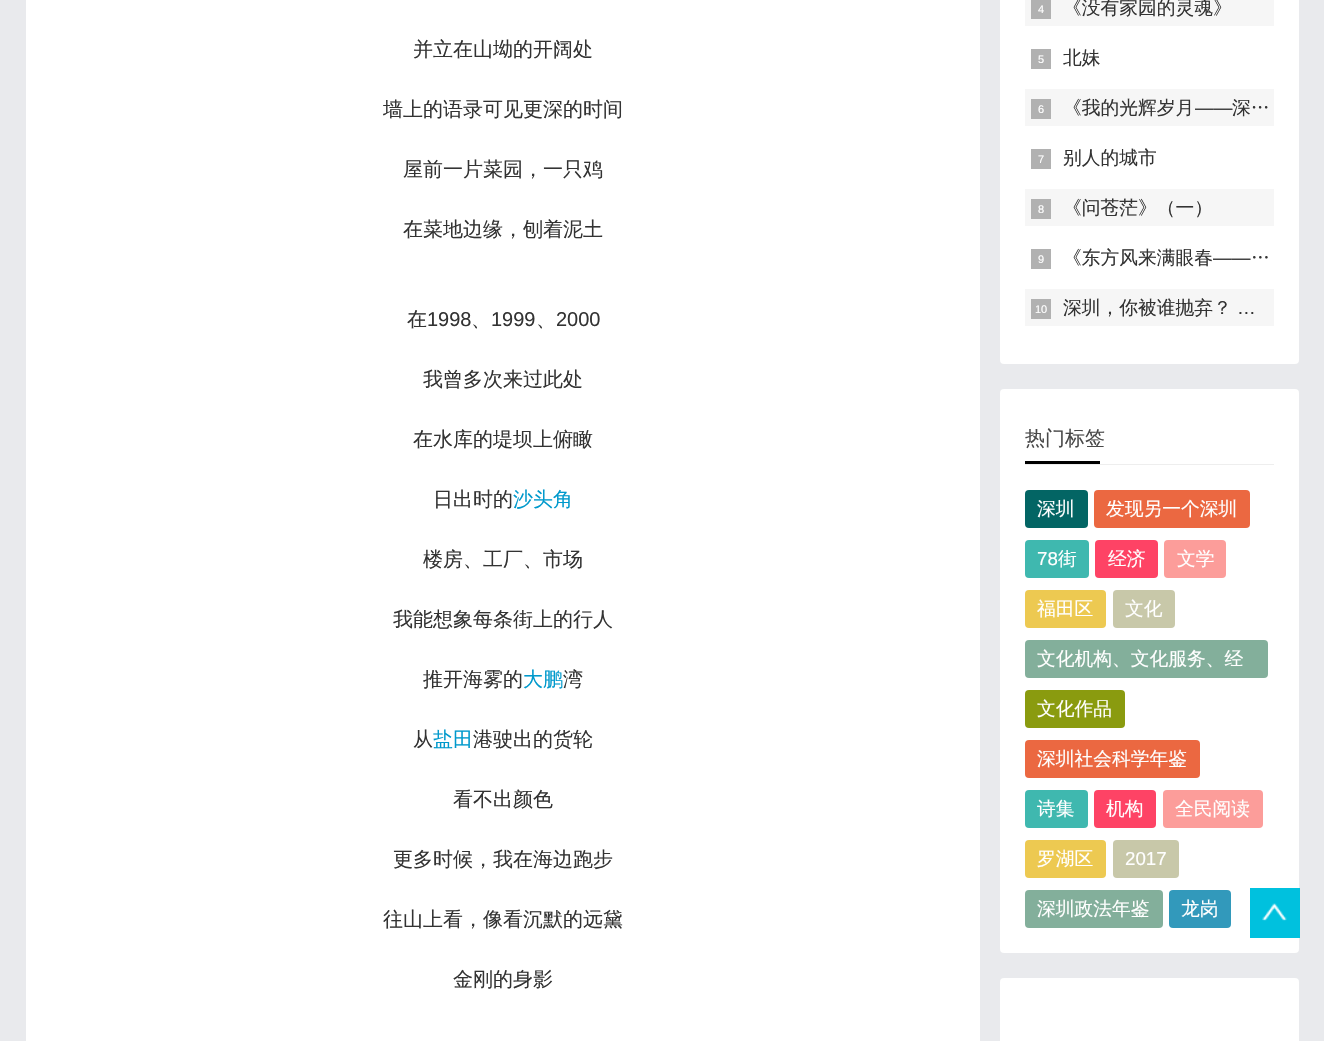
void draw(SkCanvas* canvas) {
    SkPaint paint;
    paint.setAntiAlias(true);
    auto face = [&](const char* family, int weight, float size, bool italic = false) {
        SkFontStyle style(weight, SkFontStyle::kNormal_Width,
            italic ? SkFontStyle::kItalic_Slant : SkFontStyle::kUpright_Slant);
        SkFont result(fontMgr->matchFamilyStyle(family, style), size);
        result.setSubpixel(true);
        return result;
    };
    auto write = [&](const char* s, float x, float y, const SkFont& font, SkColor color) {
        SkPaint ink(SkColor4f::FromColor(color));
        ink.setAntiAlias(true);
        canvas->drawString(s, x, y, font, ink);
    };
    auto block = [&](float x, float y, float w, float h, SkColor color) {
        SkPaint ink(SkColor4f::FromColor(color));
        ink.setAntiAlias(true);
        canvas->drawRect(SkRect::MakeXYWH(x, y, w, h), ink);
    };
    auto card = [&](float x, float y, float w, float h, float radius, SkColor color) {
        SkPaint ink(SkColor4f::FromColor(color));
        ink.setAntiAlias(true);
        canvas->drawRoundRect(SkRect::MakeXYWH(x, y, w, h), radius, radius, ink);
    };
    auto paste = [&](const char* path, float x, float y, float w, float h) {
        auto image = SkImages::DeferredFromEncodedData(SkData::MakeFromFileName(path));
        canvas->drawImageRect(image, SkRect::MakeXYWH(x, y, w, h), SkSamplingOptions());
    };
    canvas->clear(SkColorSetRGB(233, 234, 237));
    block(26, 0, 954, 1041, SK_ColorWHITE);
    auto kFont1 = face("WenQuanYi Zen Hei", 500, 20);
    write("并立在山坳的开阔处", 413, 56, kFont1, SkColorSetRGB(51, 51, 51));
    write("墙上的语录可见更深的时间", 383, 116, kFont1, SkColorSetRGB(51, 51, 51));
    write("屋前一片菜园，一只鸡", 403, 176, kFont1, SkColorSetRGB(51, 51, 51));
    write("在菜地边缘，刨着泥土", 403, 236, kFont1, SkColorSetRGB(51, 51, 51));
    write("在", 407, 326, kFont1, SkColorSetRGB(51, 51, 51));
    auto kFont2 = face("Liberation Sans", 400, 20);
    write("1998", 427, 326, kFont2, SkColorSetRGB(51, 51, 51));
    write("、", 471, 326, kFont1, SkColorSetRGB(51, 51, 51));
    write("1999", 491, 326, kFont2, SkColorSetRGB(51, 51, 51));
    write("、", 536, 326, kFont1, SkColorSetRGB(51, 51, 51));
    write("2000", 556, 326, kFont2, SkColorSetRGB(51, 51, 51));
    write("我曾多次来过此处", 423, 386, kFont1, SkColorSetRGB(51, 51, 51));
    write("在水库的堤坝上俯瞰", 413, 446, kFont1, SkColorSetRGB(51, 51, 51));
    write("日出时的", 433, 506, kFont1, SkColorSetRGB(51, 51, 51));
    write("沙头角", 513, 506, kFont1, SkColorSetRGB(0, 153, 204));
    write("楼房、工厂、市场", 423, 566, kFont1, SkColorSetRGB(51, 51, 51));
    write("我能想象每条街上的行人", 393, 626, kFont1, SkColorSetRGB(51, 51, 51));
    write("推开海雾的", 423, 686, kFont1, SkColorSetRGB(51, 51, 51));
    write("大鹏", 523, 686, kFont1, SkColorSetRGB(0, 153, 204));
    write("湾", 563, 686, kFont1, SkColorSetRGB(51, 51, 51));
    write("从", 413, 746, kFont1, SkColorSetRGB(51, 51, 51));
    write("盐田", 433, 746, kFont1, SkColorSetRGB(0, 153, 204));
    write("港驶出的货轮", 473, 746, kFont1, SkColorSetRGB(51, 51, 51));
    write("看不出颜色", 453, 806, kFont1, SkColorSetRGB(51, 51, 51));
    write("更多时候，我在海边跑步", 393, 866, kFont1, SkColorSetRGB(51, 51, 51));
    write("往山上看，像看沉默的远黛", 383, 926, kFont1, SkColorSetRGB(51, 51, 51));
    write("金刚的身影", 453, 986, kFont1, SkColorSetRGB(51, 51, 51));
    card(1000, -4, 299, 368, 4, SK_ColorWHITE);
    block(1025, 0, 249, 26, SkColorSetRGB(246, 246, 246));
    block(1031, 0, 20, 19, SkColorSetRGB(177, 177, 177));
    auto kFont3 = face("Liberation Sans", 400, 11);
    write("4", 1038, 13, kFont3, SK_ColorWHITE);
    auto kFont4 = face("WenQuanYi Zen Hei", 500, 18.75f);
    write("《没有家园的灵魂》", 1063, 14, kFont4, SkColorSetRGB(51, 51, 51));
    block(1031, 49, 20, 20, SkColorSetRGB(177, 177, 177));
    write("5", 1038, 63, kFont3, SK_ColorWHITE);
    write("北妹", 1063, 64, kFont4, SkColorSetRGB(51, 51, 51));
    block(1025, 89, 249, 37, SkColorSetRGB(246, 246, 246));
    block(1031, 99, 20, 20, SkColorSetRGB(177, 177, 177));
    write("6", 1038, 113, kFont3, SK_ColorWHITE);
    write("《我的光辉岁月", 1063, 114, kFont4, SkColorSetRGB(51, 51, 51));
    auto kFont5 = face("Liberation Sans", 400, 18.75f);
    write("——", 1195, 114, kFont5, SkColorSetRGB(51, 51, 51));
    write("深…", 1232, 114, kFont4, SkColorSetRGB(51, 51, 51));
    block(1031, 149, 20, 20, SkColorSetRGB(177, 177, 177));
    write("7", 1038, 163, kFont3, SK_ColorWHITE);
    write("别人的城市", 1063, 164, kFont4, SkColorSetRGB(51, 51, 51));
    block(1025, 189, 249, 37, SkColorSetRGB(246, 246, 246));
    block(1031, 199, 20, 20, SkColorSetRGB(177, 177, 177));
    write("8", 1038, 213, kFont3, SK_ColorWHITE);
    write("《问苍茫》（一）", 1063, 214, kFont4, SkColorSetRGB(51, 51, 51));
    block(1031, 249, 20, 20, SkColorSetRGB(177, 177, 177));
    write("9", 1038, 263, kFont3, SK_ColorWHITE);
    write("《东方风来满眼春", 1063, 264, kFont4, SkColorSetRGB(51, 51, 51));
    write("——", 1213, 264, kFont5, SkColorSetRGB(51, 51, 51));
    write("…", 1251, 264, kFont4, SkColorSetRGB(51, 51, 51));
    block(1025, 289, 249, 37, SkColorSetRGB(246, 246, 246));
    block(1031, 299, 20, 20, SkColorSetRGB(177, 177, 177));
    write("10", 1035, 313, kFont3, SK_ColorWHITE);
    write("深圳，你被谁抛弃？", 1063, 314, kFont4, SkColorSetRGB(51, 51, 51));
    write("…", 1237, 314, kFont5, SkColorSetRGB(51, 51, 51));
    card(1000, 389, 299, 564, 4, SK_ColorWHITE);
    block(1025, 464, 249, 1, SkColorSetRGB(238, 238, 238));
    write("热门标签", 1025, 445, kFont1, SkColorSetRGB(72, 72, 72));
    block(1025, 461, 75, 3, SK_ColorBLACK);
    card(1025, 490, 63, 38, 4, SkColorSetRGB(3, 101, 100));
    write("深圳", 1037, 515, kFont4, SK_ColorWHITE);
    card(1094, 490, 156, 38, 4, SkColorSetRGB(235, 104, 65));
    write("发现另一个深圳", 1106, 515, kFont4, SK_ColorWHITE);
    card(1025, 540, 64, 38, 4, SkColorSetRGB(63, 184, 175));
    write("78", 1037, 565, kFont5, SK_ColorWHITE);
    write("街", 1058, 565, kFont4, SK_ColorWHITE);
    card(1095, 540, 63, 38, 4, SkColorSetRGB(254, 67, 101));
    write("经济", 1108, 565, kFont4, SK_ColorWHITE);
    card(1164, 540, 62, 38, 4, SkColorSetRGB(252, 157, 154));
    write("文学", 1177, 565, kFont4, SK_ColorWHITE);
    card(1025, 590, 81, 38, 4, SkColorSetRGB(237, 201, 81));
    write("福田区", 1037, 615, kFont4, SK_ColorWHITE);
    card(1113, 590, 62, 38, 4, SkColorSetRGB(200, 200, 169));
    write("文化", 1125, 615, kFont4, SK_ColorWHITE);
    card(1025, 640, 243, 38, 4, SkColorSetRGB(131, 175, 155));
    write("文化机构、文化服务、经", 1037, 665, kFont4, SK_ColorWHITE);
    card(1025, 690, 100, 38, 4, SkColorSetRGB(138, 155, 15));
    write("文化作品", 1037, 715, kFont4, SK_ColorWHITE);
    card(1025, 740, 175, 38, 4, SkColorSetRGB(235, 104, 65));
    write("深圳社会科学年鉴", 1037, 765, kFont4, SK_ColorWHITE);
    card(1025, 790, 63, 38, 4, SkColorSetRGB(63, 184, 175));
    write("诗集", 1037, 815, kFont4, SK_ColorWHITE);
    card(1094, 790, 62, 38, 4, SkColorSetRGB(254, 67, 101));
    write("机构", 1106, 815, kFont4, SK_ColorWHITE);
    card(1163, 790, 100, 38, 4, SkColorSetRGB(252, 157, 154));
    write("全民阅读", 1175, 815, kFont4, SK_ColorWHITE);
    card(1025, 840, 81, 38, 4, SkColorSetRGB(237, 201, 81));
    write("罗湖区", 1037, 865, kFont4, SK_ColorWHITE);
    card(1113, 840, 66, 38, 4, SkColorSetRGB(200, 200, 169));
    write("2017", 1125, 865, kFont5, SK_ColorWHITE);
    card(1025, 890, 138, 38, 4, SkColorSetRGB(131, 175, 155));
    write("深圳政法年鉴", 1037, 915, kFont4, SK_ColorWHITE);
    card(1169, 890, 62, 38, 4, SkColorSetRGB(50, 153, 187));
    write("龙岗", 1181, 915, kFont4, SK_ColorWHITE);
    card(1000, 978, 299, 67, 4, SK_ColorWHITE);
    block(1250, 888, 50, 50, SkColorSetRGB(0, 193, 222));
    paste("pic1.png", 1262, 903, 25, 18);
}
